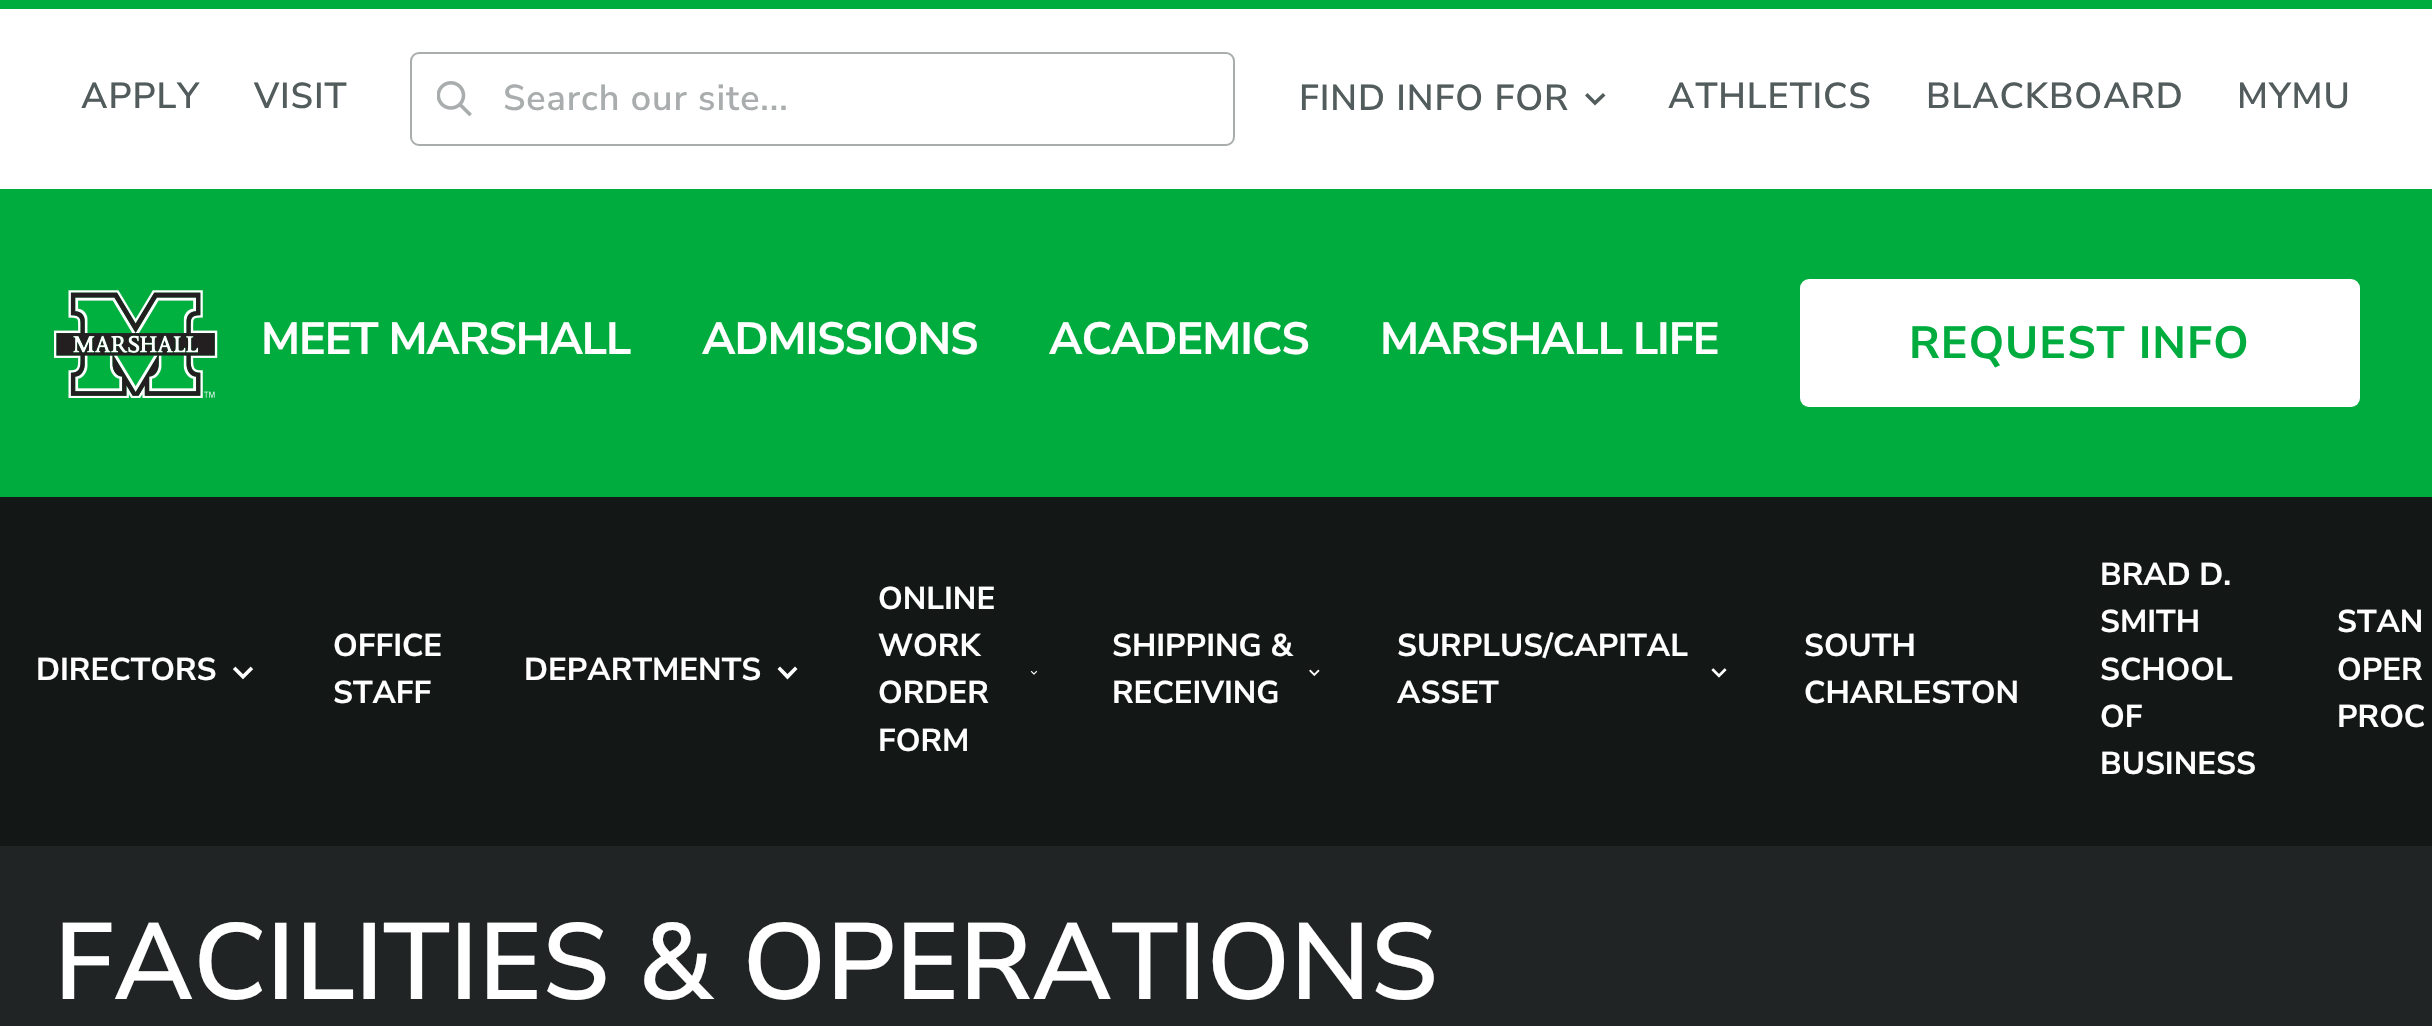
void draw(SkCanvas* canvas) {
    SkPaint paint;
    paint.setAntiAlias(true);
    auto face = [&](const char* family, int weight, float size, bool italic = false) {
        SkFontStyle style(weight, SkFontStyle::kNormal_Width,
            italic ? SkFontStyle::kItalic_Slant : SkFontStyle::kUpright_Slant);
        SkFont result(fontMgr->matchFamilyStyle(family, style), size);
        result.setSubpixel(true);
        return result;
    };
    auto write = [&](const char* s, float x, float y, const SkFont& font, SkColor color) {
        SkPaint ink(SkColor4f::FromColor(color));
        ink.setAntiAlias(true);
        canvas->drawString(s, x, y, font, ink);
    };
    auto writeSpaced = [&](const char* s, float x, float y, const SkFont& font, const SkPaint& ink, float letter, float word) {
        std::vector<SkGlyphID> glyphs(font.countText(s, strlen(s), SkTextEncoding::kUTF8));
        std::vector<float> xs(glyphs.size());
        font.textToGlyphs(s, strlen(s), SkTextEncoding::kUTF8, glyphs);
        font.getXPos(glyphs, xs, x);
        float extra = 0;
        for (size_t i = 0; i < glyphs.size(); i++) {
            xs[i] += extra;
            extra += letter + word * (glyphs[i] == font.unicharToGlyph(' '));
        }
        canvas->drawTextBlob(SkTextBlob::MakeFromPosHGlyphs(glyphs, xs, y, font), 0, 0, ink);
    };
    auto block = [&](float x, float y, float w, float h, SkColor color) {
        SkPaint ink(SkColor4f::FromColor(color));
        ink.setAntiAlias(true);
        canvas->drawRect(SkRect::MakeXYWH(x, y, w, h), ink);
    };
    auto card = [&](float x, float y, float w, float h, float radius, SkColor color) {
        SkPaint ink(SkColor4f::FromColor(color));
        ink.setAntiAlias(true);
        canvas->drawRoundRect(SkRect::MakeXYWH(x, y, w, h), radius, radius, ink);
    };
    auto paste = [&](const char* path, float x, float y, float w, float h) {
        auto image = SkImages::DeferredFromEncodedData(SkData::MakeFromFileName(path));
        canvas->drawImageRect(image, SkRect::MakeXYWH(x, y, w, h), SkSamplingOptions());
    };
    canvas->clear(SK_ColorWHITE);
    block(0, 0, 2432, 9, SkColorSetRGB(0, 172, 62));
    auto kFont1 = face("Nunito Sans", 600, 36);
    paint.setColor(SkColorSetRGB(83, 92, 92));
    writeSpaced("APPLY", 81, 108, kFont1, paint, 0.9f, 0);
    writeSpaced("VISIT", 254, 108, kFont1, paint, 0.9f, 0);
    paint.setStyle(SkPaint::kStroke_Style);
    paint.setStrokeWidth(2);
    paint.setColor(SkColorSetRGB(169, 173, 173));
    canvas->drawRoundRect(SkRect::MakeXYWH(411, 53, 823, 92), 8, 8, paint);
    paste("pic1.png", 437, 81, 35, 36);
    paint.setStyle(SkPaint::kFill_Style);
    writeSpaced("Search our site...", 503, 110, kFont1, paint, 0.9f, 0);
    paint.setColor(SkColorSetRGB(83, 92, 92));
    writeSpaced("FIND INFO FOR", 1299, 110, kFont1, paint, 0.9f, 0);
    canvas->drawPath(SkPathBuilder().moveTo(1594, 104.5f).lineTo(1595, 105.5f).lineTo(1605.5f, 95.5f).lineTo(1603, 93).lineTo(1595, 100.5f).lineTo(1587.5f, 93).lineTo(1585, 95.5f).close().detach(), paint);
    writeSpaced("ATHLETICS", 1668, 108, kFont1, paint, 0.9f, 0);
    writeSpaced("BLACKBOARD", 1926, 108, kFont1, paint, 0.9f, 0);
    writeSpaced("MYMU", 2237, 108, kFont1, paint, 0.9f, 0);
    block(0, 189, 2432, 308, SkColorSetRGB(0, 172, 62));
    paste("pic2.png", 54, 290, 164, 108);
    auto kFont2 = face("Nunito Sans", 700, 45);
    paint.setColor(SK_ColorWHITE);
    writeSpaced("MEET MARSHALL", 261, 354, kFont2, paint, -1.1f, 0);
    writeSpaced("ADMISSIONS", 702, 354, kFont2, paint, -1.1f, 0);
    writeSpaced("ACADEMICS", 1049, 354, kFont2, paint, -1.1f, 0);
    writeSpaced("MARSHALL LIFE", 1380, 354, kFont2, paint, -1.1f, 0);
    card(1800, 279, 560, 128, 9, SK_ColorWHITE);
    paint.setColor(SkColorSetRGB(0, 172, 62));
    writeSpaced("REQUEST INFO", 1909, 358, kFont2, paint, 1, 0);
    block(0, 497, 2432, 349, SkColorSetRGB(19, 23, 22));
    auto kFont3 = face("Nunito Sans", 700, 31.5f);
    write("DIRECTORS", 36, 680, kFont3, SK_ColorWHITE);
    paste("pic3.png", 232, 666, 22, 14);
    write("OFFICE", 333, 656, kFont3, SK_ColorWHITE);
    write("STAFF", 333, 703, kFont3, SK_ColorWHITE);
    write("DEPARTMENTS", 524, 680, kFont3, SK_ColorWHITE);
    paint.setColor(SK_ColorWHITE);
    canvas->drawPath(SkPathBuilder().moveTo(786, 678).lineTo(787.5f, 679.5f).lineTo(797.5f, 669).lineTo(795, 666.5f).lineTo(787.5f, 674).lineTo(780, 666.5f).lineTo(777.5f, 669).close().detach(), paint);
    write("ONLINE", 878, 609, kFont3, SK_ColorWHITE);
    write("WORK", 878, 656, kFont3, SK_ColorWHITE);
    write("ORDER", 878, 703, kFont3, SK_ColorWHITE);
    write("FORM", 878, 751, kFont3, SK_ColorWHITE);
    paste("pic4.png", 1030, 670, 8, 5);
    write("SHIPPING &", 1112, 656, kFont3, SK_ColorWHITE);
    write("RECEIVING", 1112, 703, kFont3, SK_ColorWHITE);
    paste("pic5.png", 1309, 669, 11, 8);
    write("SURPLUS/CAPITAL", 1397, 656, kFont3, SK_ColorWHITE);
    write("ASSET", 1397, 703, kFont3, SK_ColorWHITE);
    paste("pic6.png", 1711, 668, 16, 10);
    write("SOUTH", 1804, 656, kFont3, SK_ColorWHITE);
    write("CHARLESTON", 1804, 703, kFont3, SK_ColorWHITE);
    write("BRAD D.", 2100, 585, kFont3, SK_ColorWHITE);
    write("SMITH", 2100, 632, kFont3, SK_ColorWHITE);
    write("SCHOOL", 2100, 680, kFont3, SK_ColorWHITE);
    write("OF", 2100, 727, kFont3, SK_ColorWHITE);
    write("BUSINESS", 2100, 774, kFont3, SK_ColorWHITE);
    write("STAN", 2337, 632, kFont3, SK_ColorWHITE);
    write("OPER", 2337, 680, kFont3, SK_ColorWHITE);
    write("PROC", 2337, 727, kFont3, SK_ColorWHITE);
    block(0, 846, 2432, 180, SkColorSetRGB(33, 36, 36));
    auto kFont4 = face("Nunito Sans", 600, 108);
    write("FACILITIES & OPERATIONS", 54, 999, kFont4, SK_ColorWHITE);
}
